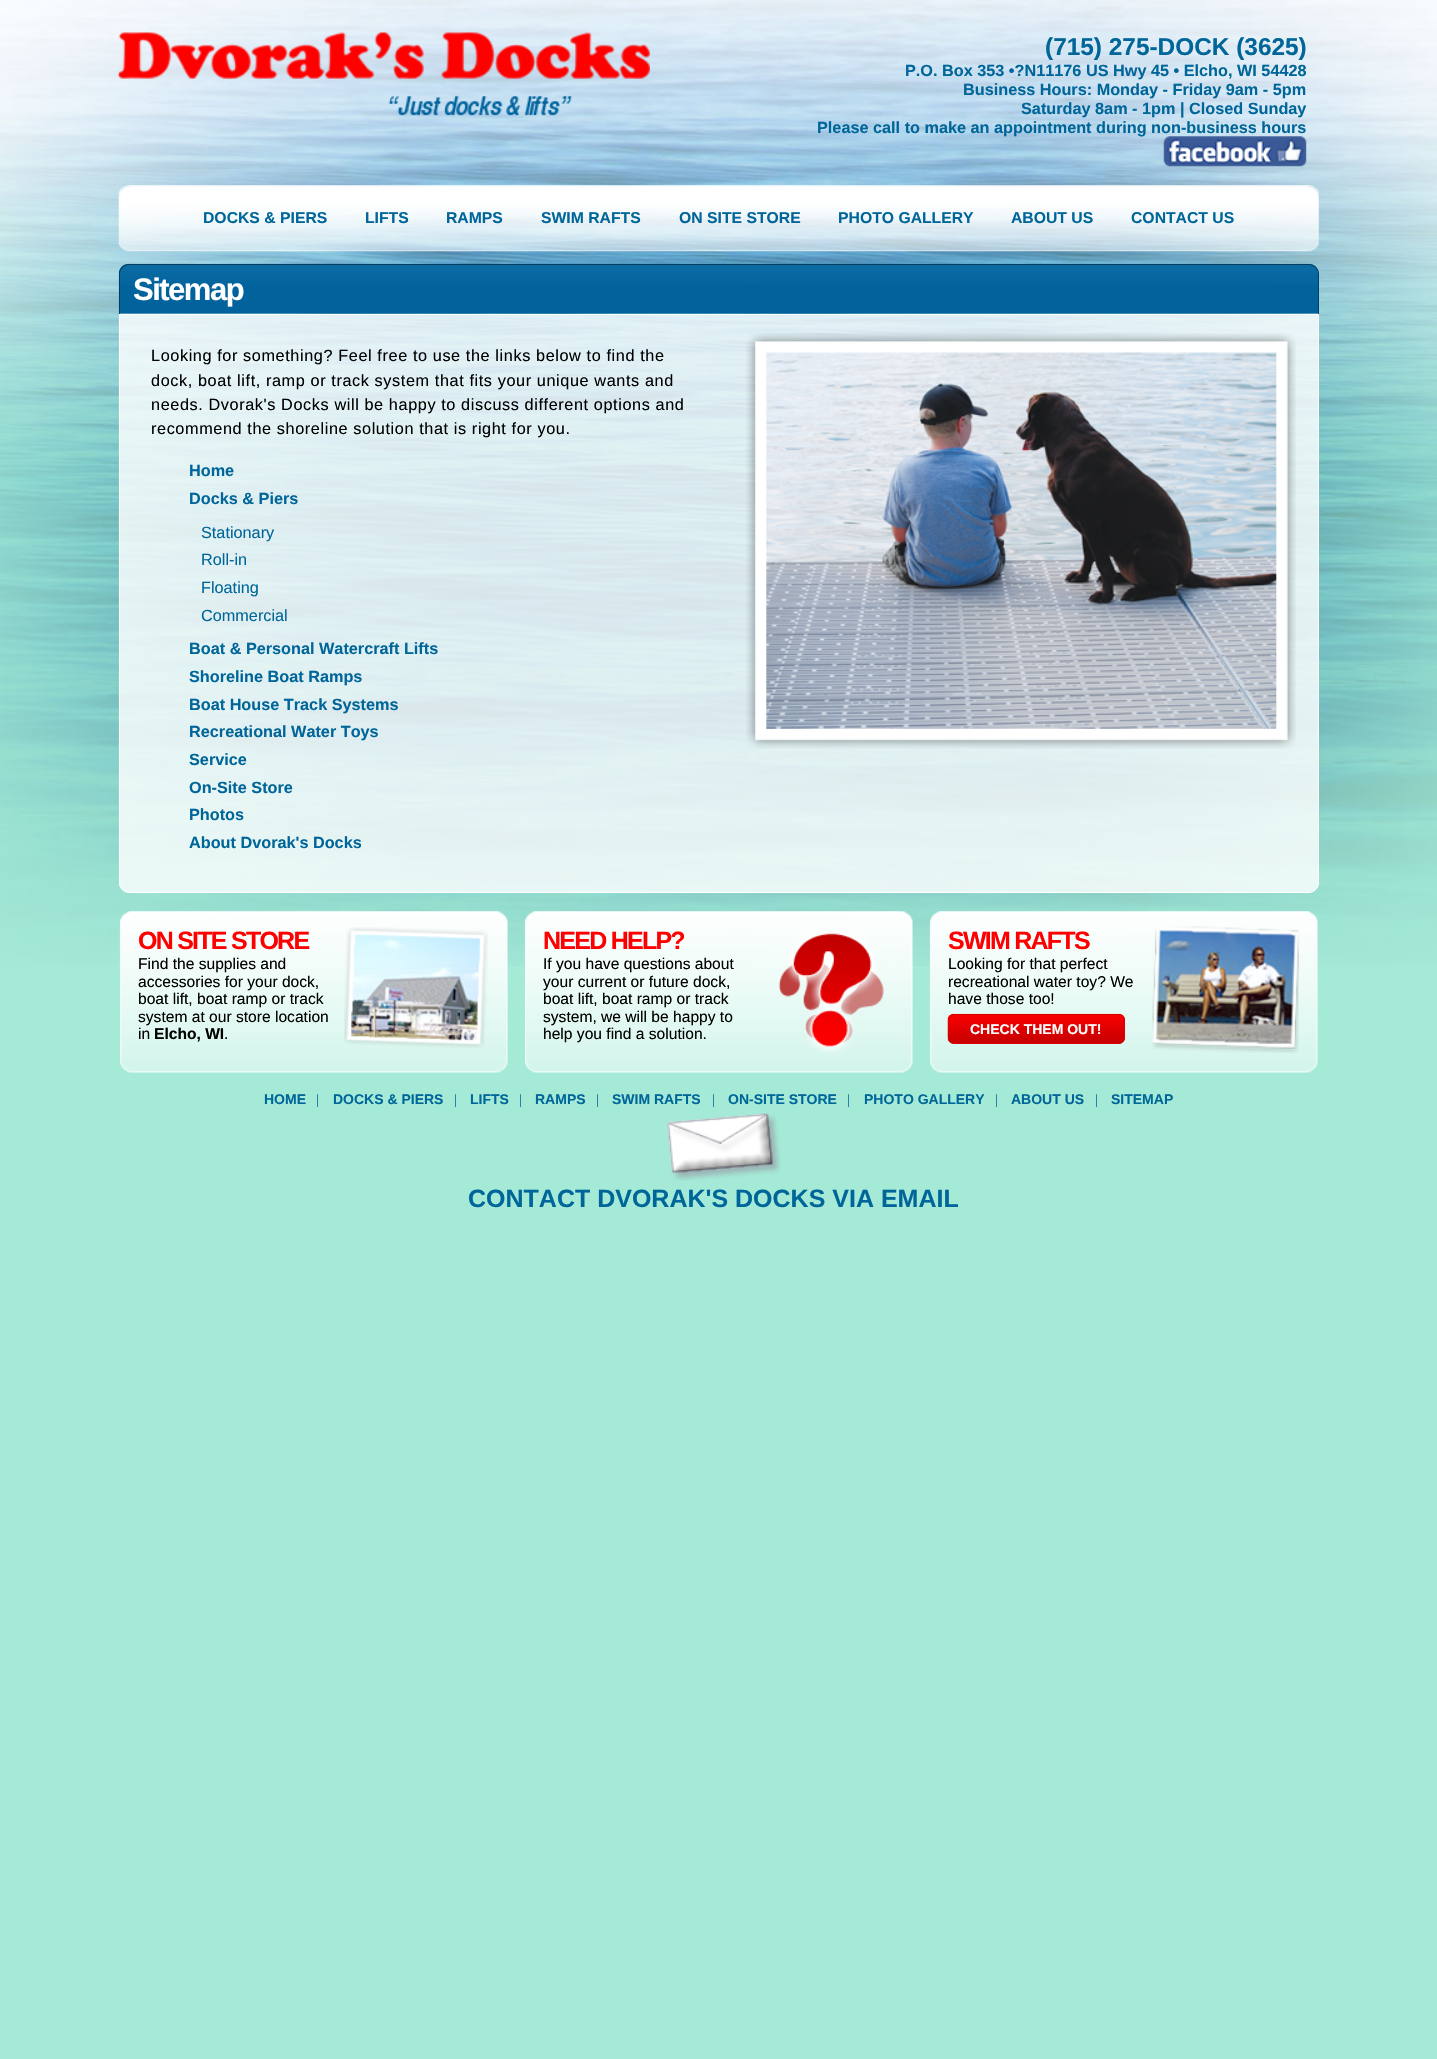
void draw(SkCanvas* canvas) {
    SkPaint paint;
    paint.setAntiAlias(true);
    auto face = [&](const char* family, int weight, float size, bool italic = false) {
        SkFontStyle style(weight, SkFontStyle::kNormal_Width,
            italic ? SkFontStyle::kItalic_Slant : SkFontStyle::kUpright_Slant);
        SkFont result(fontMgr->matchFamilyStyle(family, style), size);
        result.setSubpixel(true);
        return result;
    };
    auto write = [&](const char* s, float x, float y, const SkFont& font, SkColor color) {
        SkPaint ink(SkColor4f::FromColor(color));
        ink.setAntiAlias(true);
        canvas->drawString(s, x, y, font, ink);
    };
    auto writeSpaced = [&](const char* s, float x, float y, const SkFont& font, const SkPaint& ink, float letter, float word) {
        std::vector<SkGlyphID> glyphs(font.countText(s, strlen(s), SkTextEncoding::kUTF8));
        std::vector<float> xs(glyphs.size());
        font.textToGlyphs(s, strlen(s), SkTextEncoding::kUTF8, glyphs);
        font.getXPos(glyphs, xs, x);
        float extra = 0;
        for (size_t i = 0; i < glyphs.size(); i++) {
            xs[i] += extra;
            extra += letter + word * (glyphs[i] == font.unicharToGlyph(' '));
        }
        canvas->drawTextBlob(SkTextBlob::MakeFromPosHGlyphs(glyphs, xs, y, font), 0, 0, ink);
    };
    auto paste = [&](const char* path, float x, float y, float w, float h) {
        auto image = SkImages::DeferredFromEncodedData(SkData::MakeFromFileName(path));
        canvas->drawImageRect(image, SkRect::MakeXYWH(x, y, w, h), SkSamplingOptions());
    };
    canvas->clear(SkColorSetRGB(164, 234, 214));
    paste("pic1.png", 0, 0, 1437, 966);
    paste("pic2.png", 118, 32, 532, 84);
    auto kFont1 = face("Liberation Sans", 700, 24.4f);
    write("(715) 275-DOCK (3625)", 1045, 55, kFont1, SkColorSetRGB(0, 102, 153));
    auto kFont2 = face("Liberation Sans", 700, 16.25f);
    write("P.O. Box 353 •?N11176 US Hwy 45 • Elcho, WI 54428", 905, 76, kFont2, SkColorSetRGB(0, 102, 153));
    write("Business Hours: Monday - Friday 9am - 5pm", 963, 95, kFont2, SkColorSetRGB(0, 102, 153));
    write("Saturday 8am - 1pm | Closed Sunday", 1021, 114, kFont2, SkColorSetRGB(0, 102, 153));
    write("Please call to make an appointment during non-business hours", 817, 133, kFont2, SkColorSetRGB(0, 102, 153));
    paste("pic3.png", 1163, 136, 144, 31);
    paste("pic4.png", 118, 185, 1201, 67);
    auto kFont3 = face("Liberation Sans", 700, 15.75f);
    write("DOCKS & PIERS", 203, 223, kFont3, SkColorSetRGB(0, 102, 153));
    write("LIFTS", 365, 223, kFont3, SkColorSetRGB(0, 102, 153));
    write("RAMPS", 446, 223, kFont3, SkColorSetRGB(0, 102, 153));
    write("SWIM RAFTS", 541, 223, kFont3, SkColorSetRGB(0, 102, 153));
    write("ON SITE STORE", 679, 223, kFont3, SkColorSetRGB(0, 102, 153));
    write("PHOTO GALLERY", 838, 223, kFont3, SkColorSetRGB(0, 102, 153));
    write("ABOUT US", 1011, 223, kFont3, SkColorSetRGB(0, 102, 153));
    write("CONTACT US", 1131, 223, kFont3, SkColorSetRGB(0, 102, 153));
    paste("pic5.png", 118, 263, 1201, 51);
    paint.setColor(SkColorSetRGB(0, 61, 97));
    canvas->drawPath(SkPathBuilder(SkPathFillType::kEvenOdd).moveTo(129, 264).lineTo(1309, 264).cubicTo(1314, 264, 1319, 268, 1319, 274).lineTo(1319, 314).lineTo(119, 314).lineTo(119, 274).cubicTo(119, 268, 123, 264, 129, 264).close().moveTo(129, 265).lineTo(1309, 265).cubicTo(1314, 265, 1318, 269, 1318, 274).lineTo(1318, 314).lineTo(120, 314).lineTo(120, 274).cubicTo(120, 269, 124, 265, 129, 265).close().detach(), paint);
    auto kFont4 = face("Liberation Sans", 700, 31);
    paint.setColor(SK_ColorWHITE);
    writeSpaced("Sitemap", 133, 300, kFont4, paint, -1.5f, 0);
    paste("pic6.png", 118, 313, 1201, 580);
    paint.setStyle(SkPaint::kStroke_Style);
    paint.setStrokeWidth(1);
    canvas->drawPath(SkPathBuilder().moveTo(119.5f, 314.5f).lineTo(1318.5f, 314.5f).lineTo(1318.5f, 883).cubicTo(1318.5f, 888, 1314, 892.5f, 1309, 892.5f).lineTo(129, 892.5f).cubicTo(124, 892.5f, 119.5f, 888, 119.5f, 883).close().detach(), paint);
    auto kFont5 = face("Liberation Sans", 400, 16.25f);
    paint.setStyle(SkPaint::kFill_Style);
    paint.setColor(SK_ColorBLACK);
    writeSpaced("Looking for something? Feel free to use the links below to find the", 151, 361, kFont5, paint, 0.6f, 0);
    writeSpaced("dock, boat lift, ramp or track system that fits your unique wants and", 151, 386, kFont5, paint, 0.6f, 0);
    writeSpaced("needs. Dvorak's Docks will be happy to discuss different options and", 151, 410, kFont5, paint, 0.6f, 0);
    writeSpaced("recommend the shoreline solution that is right for you.", 151, 434, kFont5, paint, 0.6f, 0);
    write("Home", 189, 476, kFont2, SkColorSetRGB(0, 102, 153));
    write("Docks & Piers", 189, 504, kFont2, SkColorSetRGB(0, 102, 153));
    write("Stationary", 201, 538, kFont5, SkColorSetRGB(0, 102, 153));
    write("Roll-in", 201, 565, kFont5, SkColorSetRGB(0, 102, 153));
    write("Floating", 201, 593, kFont5, SkColorSetRGB(0, 102, 153));
    write("Commercial", 201, 621, kFont5, SkColorSetRGB(0, 102, 153));
    write("Boat & Personal Watercraft Lifts", 189, 654, kFont2, SkColorSetRGB(0, 102, 153));
    write("Shoreline Boat Ramps", 189, 682, kFont2, SkColorSetRGB(0, 102, 153));
    write("Boat House Track Systems", 189, 710, kFont2, SkColorSetRGB(0, 102, 153));
    write("Recreational Water Toys", 189, 737, kFont2, SkColorSetRGB(0, 102, 153));
    write("Service", 189, 765, kFont2, SkColorSetRGB(0, 102, 153));
    write("On-Site Store", 189, 793, kFont2, SkColorSetRGB(0, 102, 153));
    write("Photos", 189, 820, kFont2, SkColorSetRGB(0, 102, 153));
    write("About Dvorak's Docks", 189, 848, kFont2, SkColorSetRGB(0, 102, 153));
    paste("pic7.png", 746, 333, 550, 416);
    paste("pic8.png", 119, 911, 389, 162);
    auto kFont6 = face("Liberation Sans", 700, 25);
    paint.setColor(SkColorSetRGB(255, 0, 0));
    writeSpaced("ON SITE STORE", 138, 949, kFont6, paint, -1.75f, 0);
    paste("pic9.png", 344, 927, 144, 121);
    auto kFont7 = face("Liberation Sans", 400, 15.6f);
    write("Find the supplies and", 138, 969, kFont7, SK_ColorBLACK);
    write("accessories for your dock,", 138, 987, kFont7, SK_ColorBLACK);
    write("boat lift, boat ramp or track", 138, 1004, kFont7, SK_ColorBLACK);
    write("system at our store location", 138, 1022, kFont7, SK_ColorBLACK);
    write("in", 138, 1039, kFont7, SK_ColorBLACK);
    auto kFont8 = face("Liberation Sans", 700, 15.6f);
    write("Elcho, WI", 154, 1039, kFont8, SK_ColorBLACK);
    write(".", 224, 1039, kFont7, SK_ColorBLACK);
    paste("pic10.png", 524, 911, 389, 162);
    writeSpaced("NEED HELP?", 543, 949, kFont6, paint, -1.75f, 0);
    paste("pic11.png", 778, 932, 106, 122);
    write("If you have questions about", 543, 969, kFont7, SK_ColorBLACK);
    write("your current or future dock,", 543, 987, kFont7, SK_ColorBLACK);
    write("boat lift, boat ramp or track", 543, 1004, kFont7, SK_ColorBLACK);
    write("system, we will be happy to", 543, 1022, kFont7, SK_ColorBLACK);
    write("help you find a solution.", 543, 1039, kFont7, SK_ColorBLACK);
    paste("pic12.png", 929, 911, 389, 162);
    writeSpaced("SWIM RAFTS", 948, 949, kFont6, paint, -1.75f, 0);
    paste("pic13.png", 1152, 926, 147, 127);
    write("Looking for that perfect", 948, 969, kFont7, SK_ColorBLACK);
    write("recreational water toy? We", 948, 987, kFont7, SK_ColorBLACK);
    write("have those too!", 948, 1004, kFont7, SK_ColorBLACK);
    paste("pic14.png", 947, 1013, 178, 31);
    paint.setStyle(SkPaint::kStroke_Style);
    paint.setColor(SkColorSetRGB(216, 0, 0));
    canvas->drawRoundRect(SkRect::MakeXYWH(948.5f, 1014.5f, 176, 29), 5.5f, 5.5f, paint);
    auto kFont9 = face("Liberation Sans", 700, 14);
    write("CHECK THEM OUT!", 970, 1034, kFont9, SK_ColorWHITE);
    write("HOME", 264, 1104, kFont9, SkColorSetRGB(0, 102, 153));
    auto kFont10 = face("Liberation Serif", 400, 14);
    write("|", 316, 1104, kFont10, SkColorSetRGB(0, 102, 153));
    write("DOCKS & PIERS", 333, 1104, kFont9, SkColorSetRGB(0, 102, 153));
    write("|", 454, 1104, kFont10, SkColorSetRGB(0, 102, 153));
    write("LIFTS", 470, 1104, kFont9, SkColorSetRGB(0, 102, 153));
    write("|", 519, 1104, kFont10, SkColorSetRGB(0, 102, 153));
    write("RAMPS", 535, 1104, kFont9, SkColorSetRGB(0, 102, 153));
    write("|", 596, 1104, kFont10, SkColorSetRGB(0, 102, 153));
    write("SWIM RAFTS", 612, 1104, kFont9, SkColorSetRGB(0, 102, 153));
    write("|", 712, 1104, kFont10, SkColorSetRGB(0, 102, 153));
    write("ON-SITE STORE", 728, 1104, kFont9, SkColorSetRGB(0, 102, 153));
    write("|", 847, 1104, kFont10, SkColorSetRGB(0, 102, 153));
    write("PHOTO GALLERY", 864, 1104, kFont9, SkColorSetRGB(0, 102, 153));
    write("|", 995, 1104, kFont10, SkColorSetRGB(0, 102, 153));
    write("ABOUT US", 1011, 1104, kFont9, SkColorSetRGB(0, 102, 153));
    write("|", 1095, 1104, kFont10, SkColorSetRGB(0, 102, 153));
    write("SITEMAP", 1111, 1104, kFont9, SkColorSetRGB(0, 102, 153));
    paste("pic15.png", 667, 1113, 114, 68);
    write("CONTACT DVORAK'S DOCKS VIA EMAIL", 468, 1207, kFont6, SkColorSetRGB(0, 102, 153));
}
